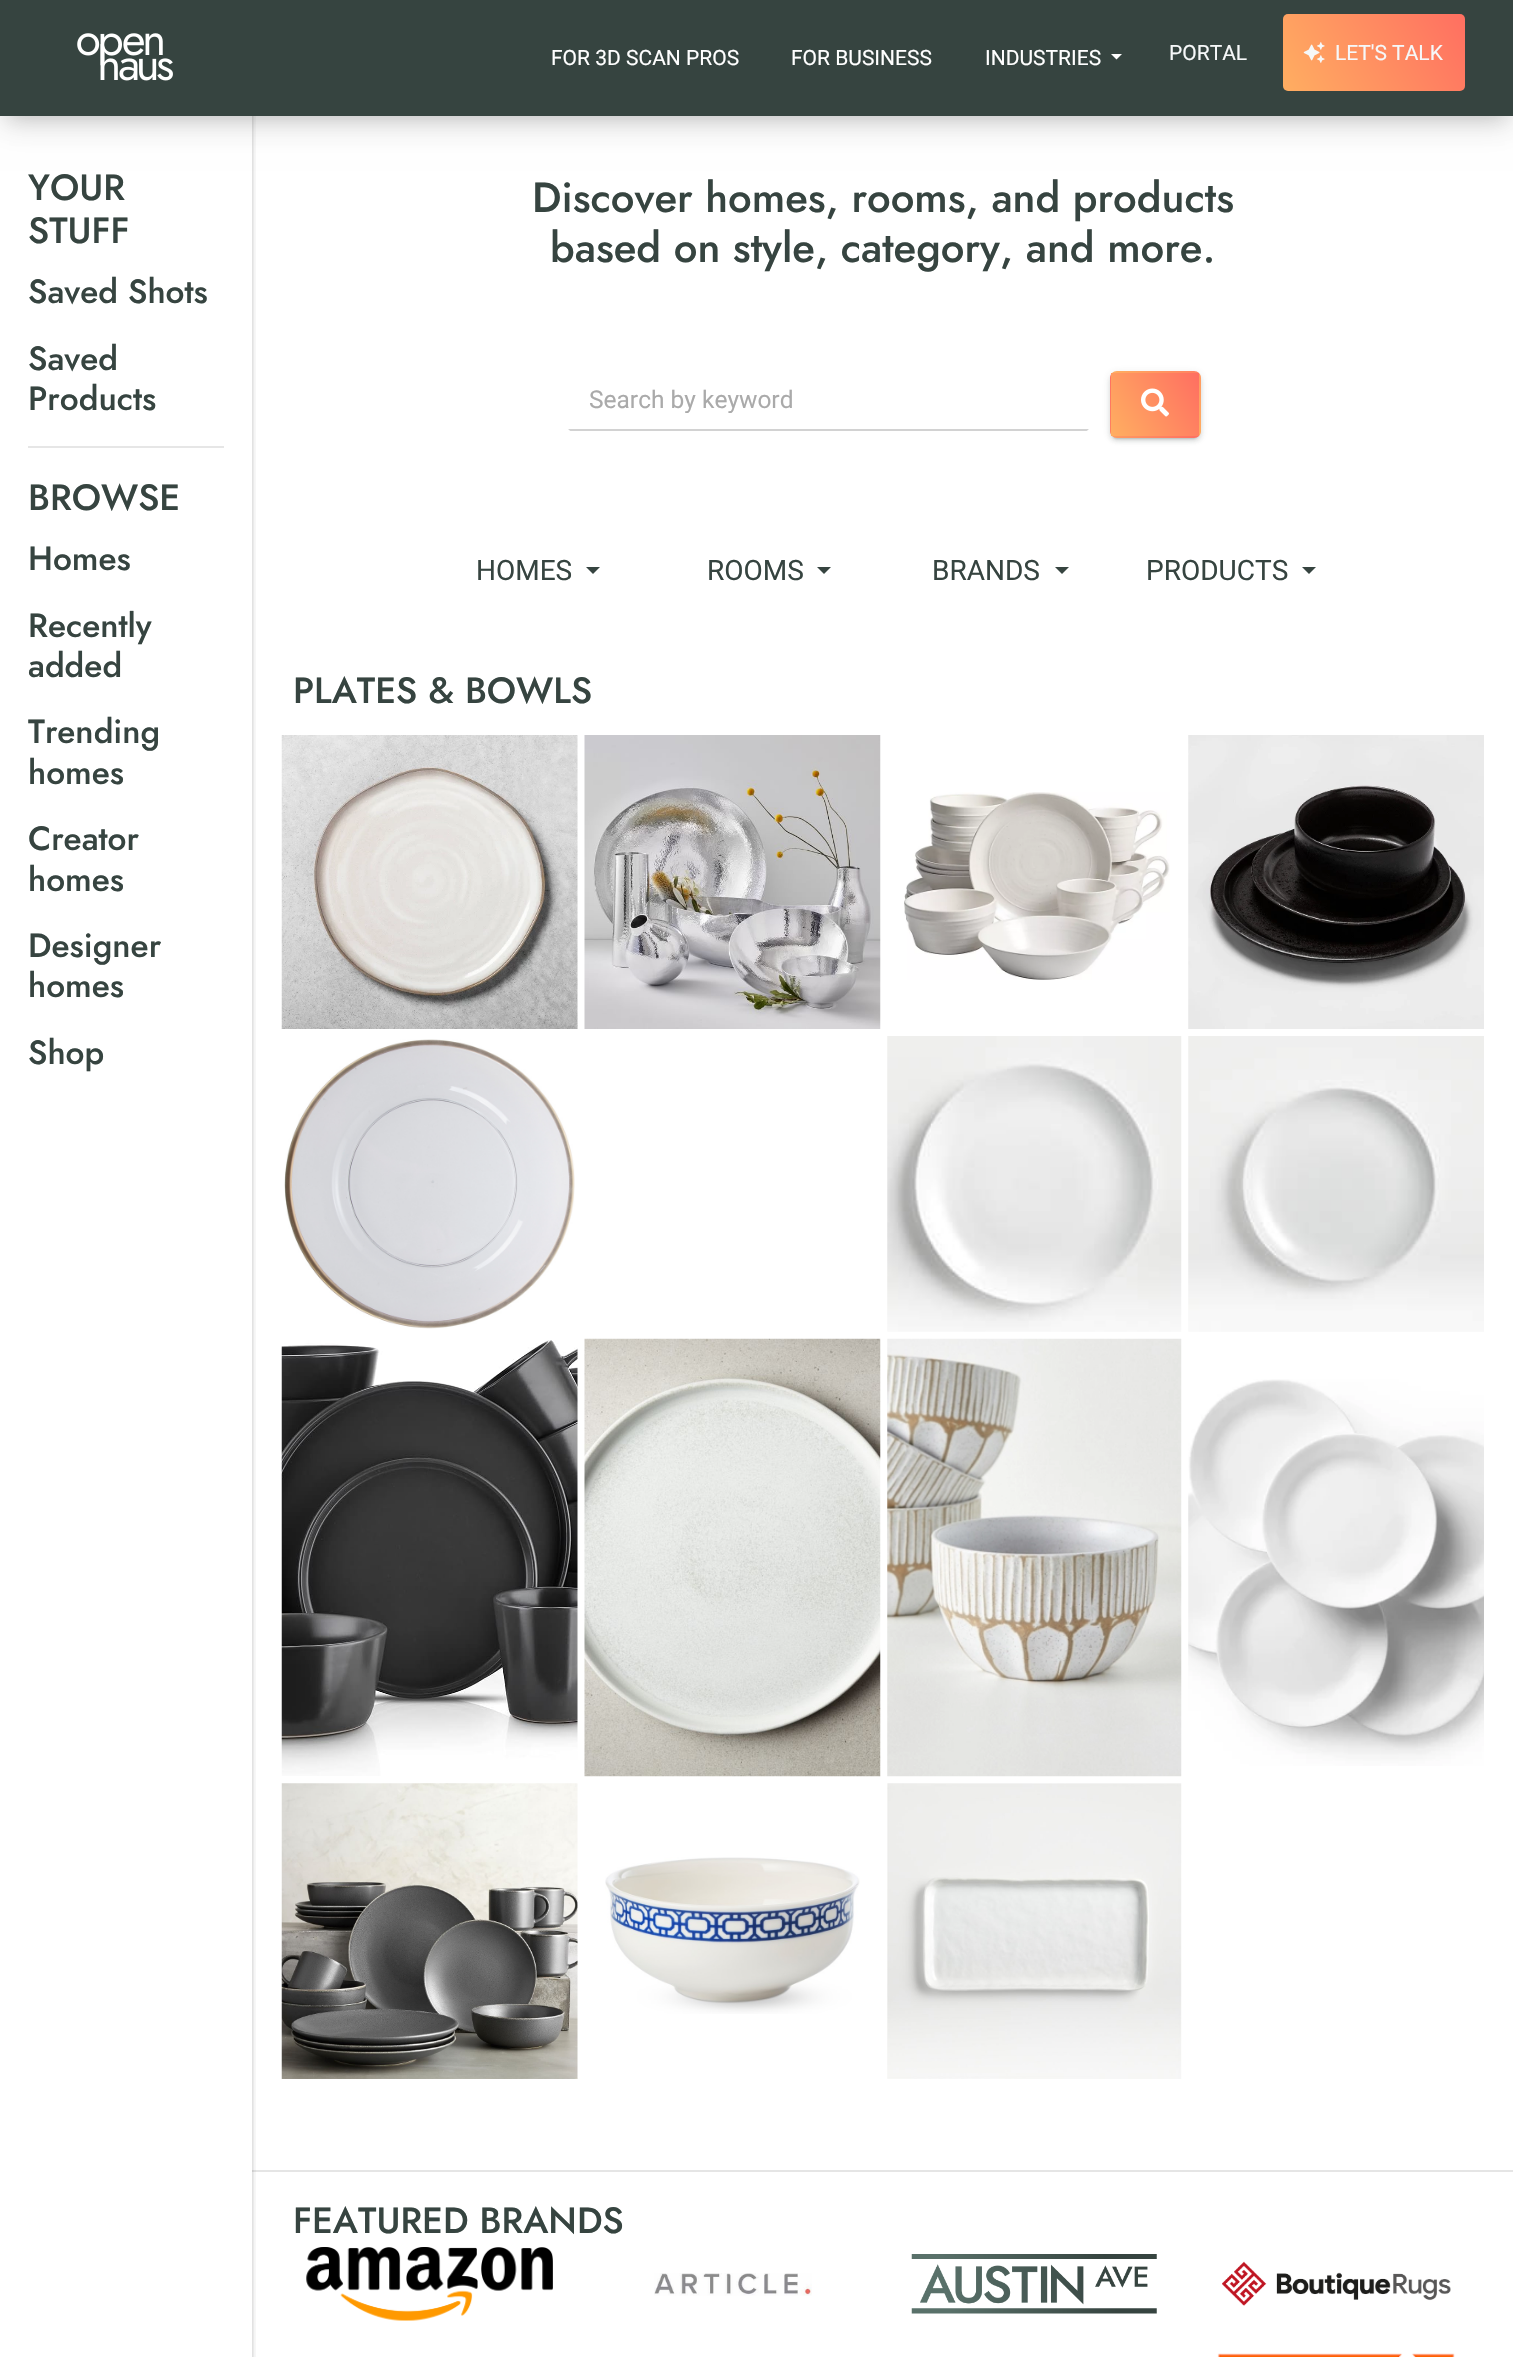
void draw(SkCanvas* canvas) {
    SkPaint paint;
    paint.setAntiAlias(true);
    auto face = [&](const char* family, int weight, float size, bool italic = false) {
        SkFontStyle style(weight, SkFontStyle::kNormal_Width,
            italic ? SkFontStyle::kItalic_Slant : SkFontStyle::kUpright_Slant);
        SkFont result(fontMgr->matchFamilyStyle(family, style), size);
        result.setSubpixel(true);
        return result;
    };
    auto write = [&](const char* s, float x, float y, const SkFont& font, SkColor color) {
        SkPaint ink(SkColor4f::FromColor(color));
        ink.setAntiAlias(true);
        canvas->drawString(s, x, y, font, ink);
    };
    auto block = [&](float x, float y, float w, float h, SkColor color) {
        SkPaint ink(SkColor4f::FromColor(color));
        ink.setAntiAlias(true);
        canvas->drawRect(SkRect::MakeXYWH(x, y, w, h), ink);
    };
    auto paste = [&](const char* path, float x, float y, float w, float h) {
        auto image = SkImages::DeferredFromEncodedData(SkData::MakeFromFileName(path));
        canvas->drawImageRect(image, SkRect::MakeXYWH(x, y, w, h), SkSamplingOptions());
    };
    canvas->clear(SK_ColorWHITE);
    paint.setColor(SkColorSetARGB(38, 0, 0, 0));
    paint.setMaskFilter(SkMaskFilter::MakeBlur(kNormal_SkBlurStyle, 9));
    canvas->drawRect(SkRect::MakeXYWH(9, 21, 1496, 98), paint);
    paint.setMaskFilter(nullptr);
    paint.setColor(SkColorSetARGB(31, 0, 0, 0));
    paint.setMaskFilter(SkMaskFilter::MakeBlur(kNormal_SkBlurStyle, 16));
    canvas->drawRect(SkRect::MakeXYWH(0, 7, 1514, 116), paint);
    paint.setMaskFilter(nullptr);
    canvas->save();
    canvas->clipRect(SkRect::MakeXYWH(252, 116, 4, 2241));
    paint.setMaskFilter(SkMaskFilter::MakeBlur(kNormal_SkBlurStyle, 4.5f));
    canvas->drawRect(SkRect::MakeXYWH(0, 105, 252, 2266), paint);
    paint.setMaskFilter(nullptr);
    canvas->restore();
    canvas->save();
    canvas->clipRect(SkRect::MakeXYWH(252, 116, 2, 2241));
    paint.setColor(SkColorSetARGB(36, 0, 0, 0));
    paint.setMaskFilter(SkMaskFilter::MakeBlur(kNormal_SkBlurStyle, 2));
    canvas->drawRect(SkRect::MakeXYWH(0, 107, 252, 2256), paint);
    paint.setMaskFilter(nullptr);
    canvas->restore();
    block(0, 0, 1513, 116, SkColorSetRGB(54, 68, 64));
    paste("pic1.png", 77, 33, 96, 48);
    auto kFont1 = face("Roboto", 400, 21);
    write("FOR 3D SCAN PROS", 551, 65, kFont1, SK_ColorWHITE);
    write("FOR BUSINESS", 791, 65, kFont1, SK_ColorWHITE);
    write("INDUSTRIES", 985, 65, kFont1, SK_ColorWHITE);
    paint.setColor(SK_ColorWHITE);
    canvas->drawPath(SkPathBuilder().moveTo(1111, 54).lineTo(1122, 54).lineTo(1116.5f, 59.5f).close().detach(), paint);
    write("PORTAL", 1169, 60, kFont1, SkColorSetRGB(246, 248, 249));
    {
        const SkColor colors[] = {SkColorSetRGB(255, 174, 97), SkColorSetRGB(255, 111, 97)};
        const float stops[] = {0, 1};
        const SkPoint ends[] = {{1289, 102}, {1459, 3.5f}};
        paint.setShader(SkGradientShader::MakeLinear(ends, colors, stops, 2, SkTileMode::kClamp));
        paint.setAlpha(255);
    }
    canvas->drawRoundRect(SkRect::MakeXYWH(1283, 14, 182, 77), 5, 5, paint);
    paste("pic2.png", 1303, 42, 22, 21);
    write("LET'S TALK", 1335, 60, kFont1, SkColorSetRGB(246, 248, 249));
    auto kFont2 = face("Jost", 500, 36.5f);
    write("YOUR", 28, 200, kFont2, SkColorSetRGB(54, 68, 64));
    write("STUFF", 28, 243, kFont2, SkColorSetRGB(54, 68, 64));
    auto kFont3 = face("Jost", 500, 33.5f);
    write("Saved Shots", 28, 303, kFont3, SkColorSetRGB(54, 68, 64));
    write("Saved", 28, 370, kFont3, SkColorSetRGB(54, 68, 64));
    write("Products", 28, 410, kFont3, SkColorSetRGB(54, 68, 64));
    block(28, 446, 196, 2, SkColorSetRGB(230, 230, 230));
    write("BROWSE", 28, 510, kFont2, SkColorSetRGB(54, 68, 64));
    write("Homes", 28, 570, kFont3, SkColorSetRGB(54, 68, 64));
    write("Recently", 28, 637, kFont3, SkColorSetRGB(54, 68, 64));
    write("added", 28, 677, kFont3, SkColorSetRGB(54, 68, 64));
    write("Trending", 28, 743, kFont3, SkColorSetRGB(54, 68, 64));
    write("homes", 28, 784, kFont3, SkColorSetRGB(54, 68, 64));
    write("Creator", 28, 850, kFont3, SkColorSetRGB(54, 68, 64));
    write("homes", 28, 891, kFont3, SkColorSetRGB(54, 68, 64));
    write("Designer", 28, 957, kFont3, SkColorSetRGB(54, 68, 64));
    write("homes", 28, 997, kFont3, SkColorSetRGB(54, 68, 64));
    write("Shop", 28, 1064, kFont3, SkColorSetRGB(54, 68, 64));
    auto kFont4 = face("Jost", 500, 42);
    write("Discover homes, rooms, and products", 532, 212, kFont4, SkColorSetRGB(54, 68, 64));
    write("based on style, category, and more.", 550, 262, kFont4, SkColorSetRGB(54, 68, 64));
    canvas->save();
    canvas->clipPath(SkPathBuilder().moveTo(574, 366).lineTo(1083, 366).cubicTo(1087, 366, 1090, 369, 1090, 373).lineTo(1090, 425).cubicTo(1090, 429, 1087, 432, 1083, 432).lineTo(574, 432).cubicTo(570, 432, 567, 429, 567, 425).lineTo(567, 373).cubicTo(567, 369, 570, 366, 574, 366).close().detach(), true);
    block(567, 429, 523, 2, SkColorSetRGB(210, 210, 210));
    canvas->restore();
    canvas->save();
    canvas->clipRect(SkRect::MakeXYWH(588, 385, 481, 28));
    auto kFont5 = face("Roboto", 400, 24.5f);
    write("Search by keyword", 589, 408, kFont5, SkColorSetRGB(170, 170, 170));
    canvas->restore();
    paint.setShader(nullptr);
    paint.setColor(SkColorSetARGB(31, 54, 68, 64));
    paint.setMaskFilter(SkMaskFilter::MakeBlur(kNormal_SkBlurStyle, 4.5f));
    canvas->drawRoundRect(SkRect::MakeXYWH(1110, 373, 91, 66), 7, 7, paint);
    paint.setMaskFilter(nullptr);
    paint.setColor(SkColorSetARGB(51, 54, 68, 64));
    paint.setMaskFilter(SkMaskFilter::MakeBlur(kNormal_SkBlurStyle, 1));
    canvas->drawRoundRect(SkRect::MakeXYWH(1113, 380, 84, 59), 4, 4, paint);
    paint.setMaskFilter(nullptr);
    paint.setColor(SkColorSetARGB(36, 54, 68, 64));
    paint.setMaskFilter(SkMaskFilter::MakeBlur(kNormal_SkBlurStyle, 2));
    canvas->drawRoundRect(SkRect::MakeXYWH(1110, 375, 91, 66), 7, 7, paint);
    paint.setMaskFilter(nullptr);
    canvas->save();
    canvas->clipPath(SkPathBuilder().moveTo(1117, 371).lineTo(1194, 371).cubicTo(1198, 371, 1201, 374, 1201, 378).lineTo(1201, 431).cubicTo(1201, 435, 1198, 438, 1194, 438).lineTo(1117, 438).cubicTo(1113, 438, 1110, 435, 1110, 431).lineTo(1110, 378).cubicTo(1110, 374, 1113, 371, 1117, 371).close().detach(), true);
    {
        const SkColor colors[] = {SkColorSetRGB(255, 174, 97), SkColorSetRGB(255, 111, 97)};
        const float stops[] = {0, 1};
        const SkPoint ends[] = {{1109, 368}, {1201, 314}};
        paint.setShader(SkGradientShader::MakeLinear(ends, colors, stops, 2, SkTileMode::kClamp));
        paint.setAlpha(255);
    }
    canvas->drawRect(SkRect::MakeXYWH(1111, 371, 88, 2), paint);
    {
        const SkColor colors[] = {SkColorSetRGB(255, 174, 97), SkColorSetRGB(255, 111, 97)};
        const float stops[] = {0, 1};
        const SkPoint ends[] = {{1021, 431}, {1114, 377}};
        paint.setShader(SkGradientShader::MakeLinear(ends, colors, stops, 2, SkTileMode::kClamp));
        paint.setAlpha(255);
    }
    canvas->drawRect(SkRect::MakeXYWH(1110, 373, 1, 63), paint);
    canvas->restore();
    {
        const SkColor colors[] = {SkColorSetRGB(255, 174, 97), SkColorSetRGB(255, 111, 97)};
        const float stops[] = {0, 1};
        const SkPoint ends[] = {{1109, 431}, {1201, 377}};
        paint.setShader(SkGradientShader::MakeLinear(ends, colors, stops, 2, SkTileMode::kClamp));
        paint.setAlpha(255);
    }
    canvas->drawRect(SkRect::MakeXYWH(1111, 373, 88, 63), paint);
    canvas->save();
    canvas->clipPath(SkPathBuilder().moveTo(1117, 371).lineTo(1194, 371).cubicTo(1198, 371, 1201, 374, 1201, 378).lineTo(1201, 431).cubicTo(1201, 435, 1198, 438, 1194, 438).lineTo(1117, 438).cubicTo(1113, 438, 1110, 435, 1110, 431).lineTo(1110, 378).cubicTo(1110, 374, 1113, 371, 1117, 371).close().detach(), true);
    {
        const SkColor colors[] = {SkColorSetRGB(255, 174, 97), SkColorSetRGB(255, 111, 97)};
        const float stops[] = {0, 1};
        const SkPoint ends[] = {{1196, 431}, {1289, 377}};
        paint.setShader(SkGradientShader::MakeLinear(ends, colors, stops, 2, SkTileMode::kClamp));
        paint.setAlpha(255);
    }
    canvas->drawRect(SkRect::MakeXYWH(1199, 373, 2, 63), paint);
    {
        const SkColor colors[] = {SkColorSetRGB(255, 174, 97), SkColorSetRGB(255, 111, 97)};
        const float stops[] = {0, 1};
        const SkPoint ends[] = {{1109, 494}, {1201, 440}};
        paint.setShader(SkGradientShader::MakeLinear(ends, colors, stops, 2, SkTileMode::kClamp));
        paint.setAlpha(255);
    }
    canvas->drawRect(SkRect::MakeXYWH(1111, 436, 88, 2), paint);
    canvas->restore();
    paste("pic3.png", 1141, 388, 28, 29);
    auto kFont6 = face("Roboto", 400, 28);
    write("HOMES", 476, 580, kFont6, SkColorSetRGB(54, 68, 64));
    paint.setShader(nullptr);
    paint.setColor(SkColorSetRGB(54, 68, 64));
    canvas->drawPath(SkPathBuilder().moveTo(586, 567).lineTo(600, 567).lineTo(593, 574).close().detach(), paint);
    write("ROOMS", 707, 580, kFont6, SkColorSetRGB(54, 68, 64));
    canvas->drawPath(SkPathBuilder().moveTo(817, 567).lineTo(831, 567).lineTo(824, 574).close().detach(), paint);
    write("BRANDS", 932, 580, kFont6, SkColorSetRGB(54, 68, 64));
    canvas->drawPath(SkPathBuilder().moveTo(1055, 567).lineTo(1069, 567).lineTo(1062, 574).close().detach(), paint);
    write("PRODUCTS", 1146, 580, kFont6, SkColorSetRGB(54, 68, 64));
    canvas->drawPath(SkPathBuilder().moveTo(1302, 567).lineTo(1316, 567).lineTo(1309, 574).close().detach(), paint);
    write("PLATES & BOWLS", 293, 703, kFont2, SkColorSetRGB(54, 68, 64));
    paste("pic4.png", 281, 735, 297, 294);
    paste("pic5.png", 584, 735, 297, 294);
    paste("pic6.png", 904, 792, 266, 188);
    paste("pic7.png", 1188, 735, 296, 294);
    paste("pic8.png", 284, 1039, 291, 290);
    paste("pic9.png", 887, 1036, 295, 296);
    paste("pic10.png", 1188, 1036, 296, 296);
    paste("pic11.png", 281, 1340, 297, 436);
    paste("pic12.png", 584, 1338, 297, 439);
    paste("pic13.png", 887, 1338, 295, 439);
    paste("pic14.png", 1188, 1379, 296, 387);
    paste("pic15.png", 281, 1783, 297, 296);
    paste("pic16.png", 605, 1857, 255, 157);
    paste("pic17.png", 887, 1783, 295, 296);
    block(252, 2170, 1261, 2, SkColorSetARGB(26, 0, 0, 0));
    write("FEATURED BRANDS", 293, 2233, kFont2, SkColorSetRGB(54, 68, 64));
    paste("pic18.png", 306, 2247, 247, 74);
    paste("pic19.png", 654, 2273, 158, 23);
    paste("pic20.png", 911, 2254, 246, 60);
    paste("pic21.png", 1222, 2261, 229, 45);
    paste("pic22.png", 1217, 2353, 238, 4);
}
